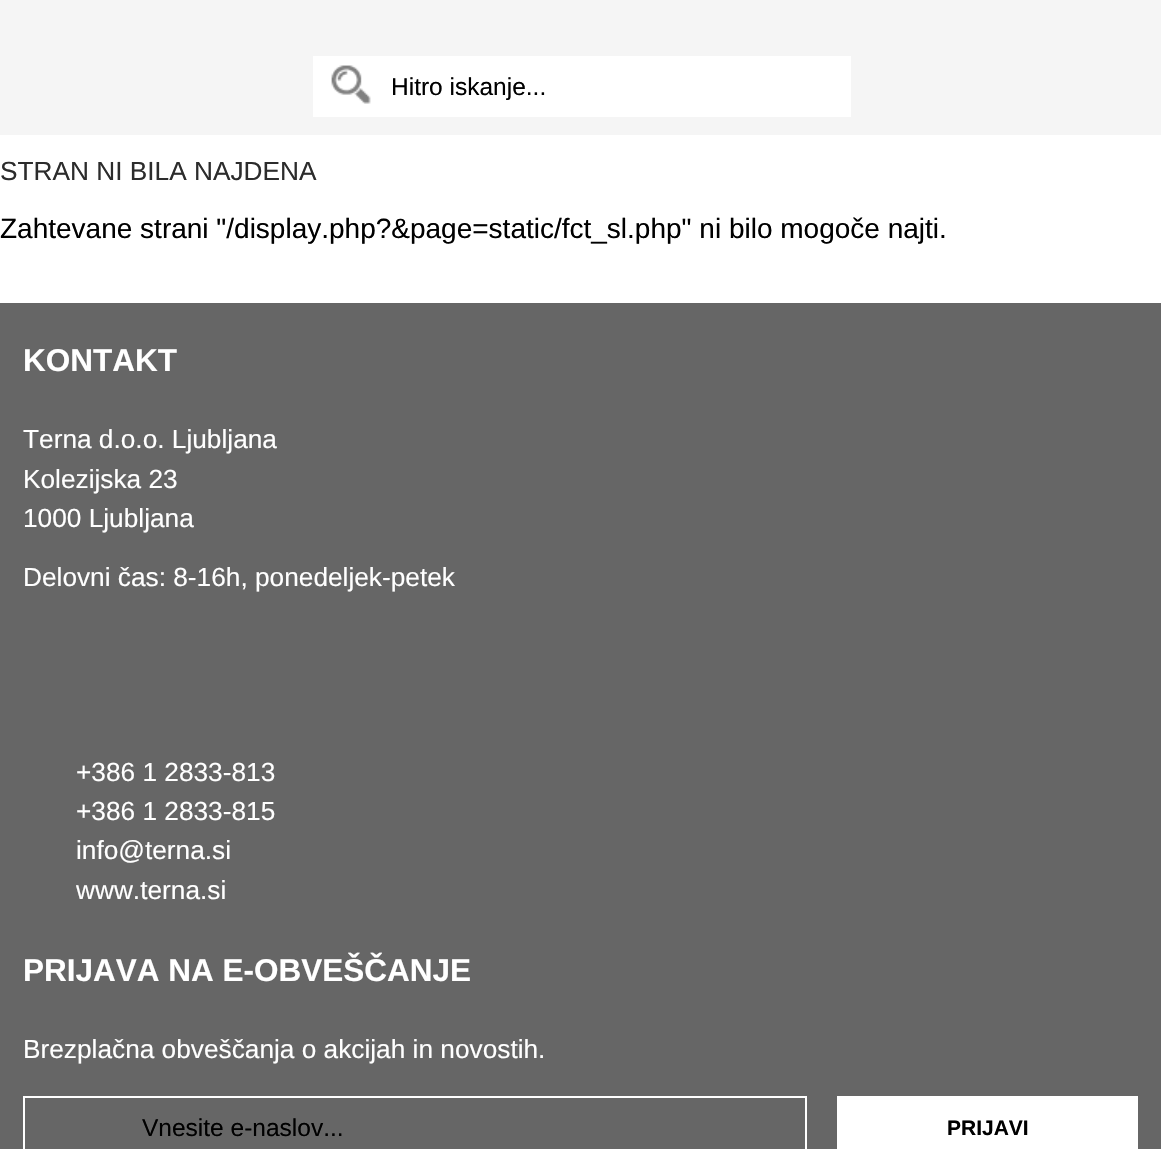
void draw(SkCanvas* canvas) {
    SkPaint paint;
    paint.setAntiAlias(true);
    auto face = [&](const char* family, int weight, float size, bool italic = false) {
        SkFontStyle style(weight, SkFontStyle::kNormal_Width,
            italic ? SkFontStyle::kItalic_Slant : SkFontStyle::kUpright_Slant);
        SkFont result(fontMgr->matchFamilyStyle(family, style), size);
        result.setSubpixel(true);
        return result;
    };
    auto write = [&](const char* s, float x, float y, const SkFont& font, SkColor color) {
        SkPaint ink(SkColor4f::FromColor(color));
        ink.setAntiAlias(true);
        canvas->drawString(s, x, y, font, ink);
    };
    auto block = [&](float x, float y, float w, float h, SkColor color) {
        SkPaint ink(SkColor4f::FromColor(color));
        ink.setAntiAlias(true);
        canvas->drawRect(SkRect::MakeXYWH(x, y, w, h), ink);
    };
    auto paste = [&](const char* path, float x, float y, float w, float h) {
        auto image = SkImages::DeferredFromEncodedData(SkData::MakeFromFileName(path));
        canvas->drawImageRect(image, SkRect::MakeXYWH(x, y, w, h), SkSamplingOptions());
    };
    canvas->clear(SkColorSetRGB(245, 245, 245));
    block(313, 56, 538, 61, SK_ColorWHITE);
    paste("pic1.png", 331, 65, 40, 39);
    auto kFont1 = face("Liberation Sans", 400, 24.5f);
    write("Hitro iskanje...", 391, 95, kFont1, SK_ColorBLACK);
    block(0, 135, 1161, 168, SK_ColorWHITE);
    auto kFont2 = face("Liberation Sans", 400, 26.25f);
    write("STRAN NI BILA NAJDENA", 0, 180, kFont2, SkColorSetRGB(44, 44, 44));
    auto kFont3 = face("Liberation Sans", 400, 28);
    write("Zahtevane strani \"/display.php?&page=static/fct_sl.php\" ni bilo mogoče najti.", 0, 238, kFont3, SK_ColorBLACK);
    block(0, 303, 1161, 846, SkColorSetRGB(102, 102, 102));
    auto kFont4 = face("Liberation Sans", 700, 31.5f);
    write("KONTAKT", 23, 371, kFont4, SK_ColorWHITE);
    write("Terna d.o.o. Ljubljana", 23, 448, kFont2, SK_ColorWHITE);
    write("Kolezijska 23", 23, 488, kFont2, SK_ColorWHITE);
    write("1000 Ljubljana", 23, 527, kFont2, SK_ColorWHITE);
    write("Delovni čas: 8-16h, ponedeljek-petek", 23, 586, kFont2, SK_ColorWHITE);
    write("+386 1 2833-813", 76, 781, kFont2, SK_ColorWHITE);
    write("+386 1 2833-815", 76, 820, kFont2, SK_ColorWHITE);
    write("info@terna.si", 76, 859, kFont2, SK_ColorWHITE);
    write("www.terna.si", 76, 899, kFont2, SK_ColorWHITE);
    write("PRIJAVA NA E-OBVEŠČANJE", 23, 981, kFont4, SK_ColorWHITE);
    write("Brezplačna obveščanja o akcijah in novostih.", 23, 1058, kFont2, SK_ColorWHITE);
    paint.setStyle(SkPaint::kStroke_Style);
    paint.setStrokeWidth(2);
    paint.setColor(SK_ColorWHITE);
    canvas->drawRect(SkRect::MakeXYWH(24, 1097, 782, 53), paint);
    write("Vnesite e-naslov...", 142, 1136, kFont1, SK_ColorBLACK);
    block(837, 1096, 301, 53, SK_ColorWHITE);
    auto kFont5 = face("Liberation Sans", 700, 21);
    write("PRIJAVI", 947, 1135, kFont5, SK_ColorBLACK);
}
